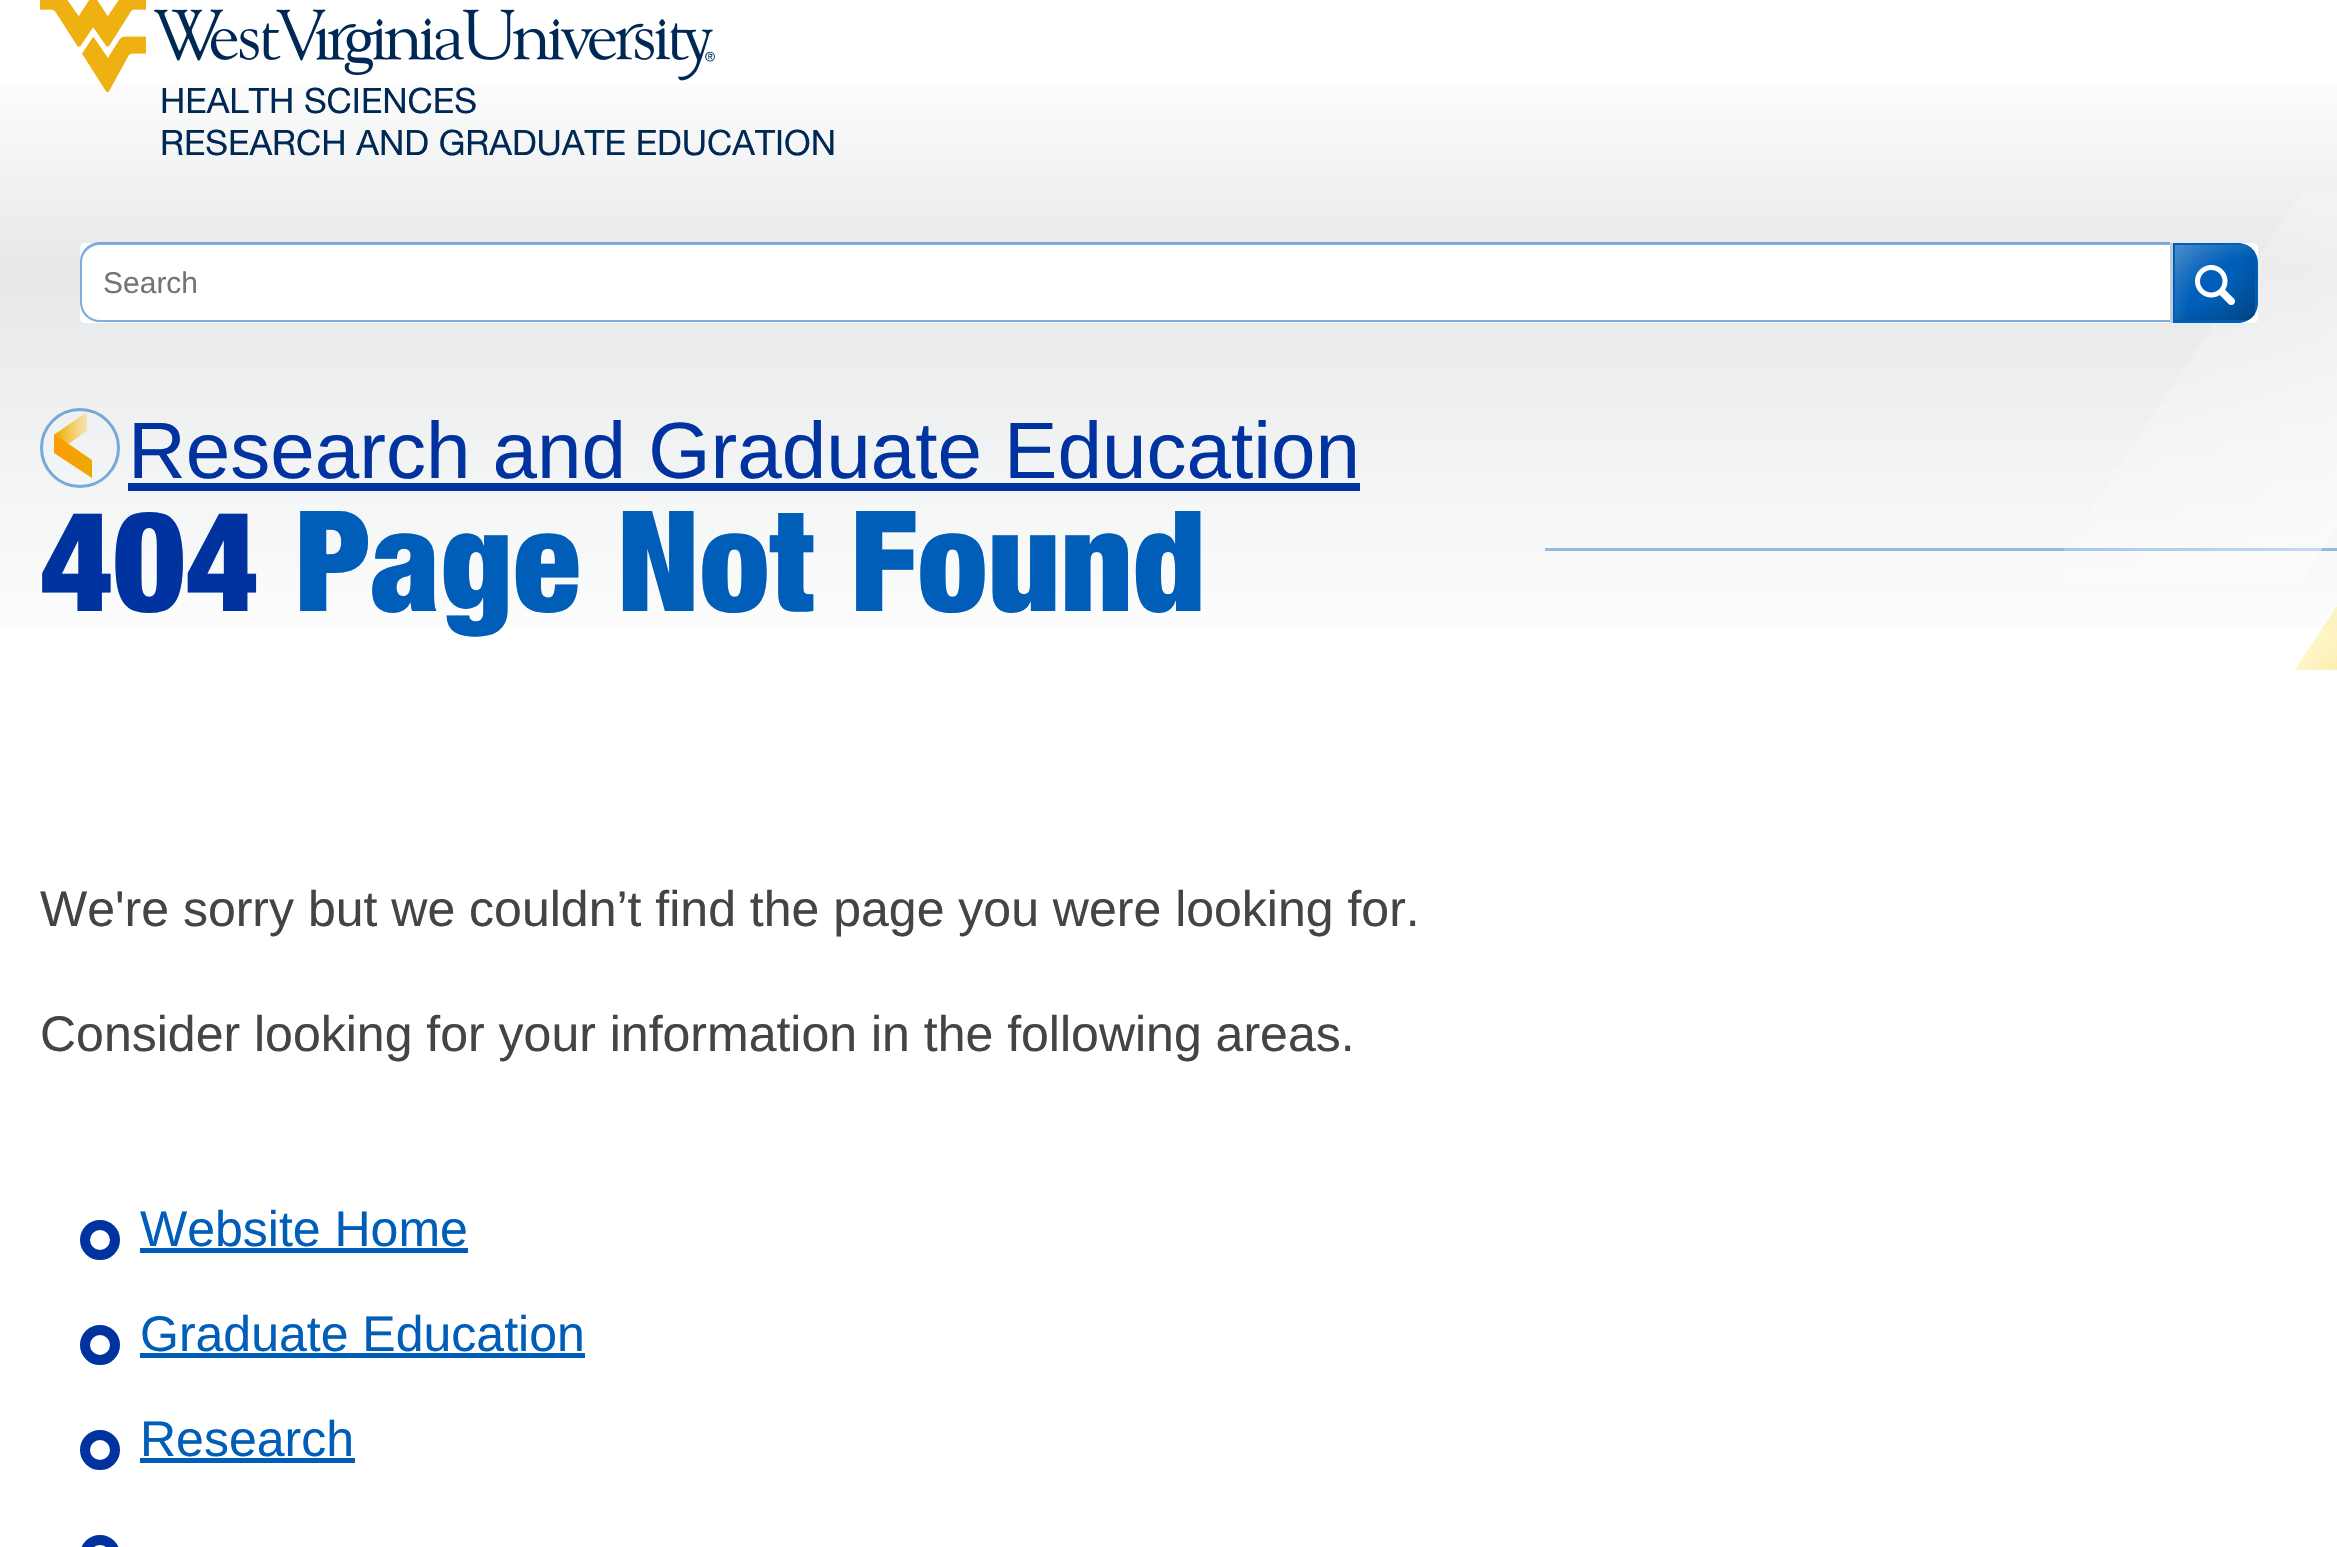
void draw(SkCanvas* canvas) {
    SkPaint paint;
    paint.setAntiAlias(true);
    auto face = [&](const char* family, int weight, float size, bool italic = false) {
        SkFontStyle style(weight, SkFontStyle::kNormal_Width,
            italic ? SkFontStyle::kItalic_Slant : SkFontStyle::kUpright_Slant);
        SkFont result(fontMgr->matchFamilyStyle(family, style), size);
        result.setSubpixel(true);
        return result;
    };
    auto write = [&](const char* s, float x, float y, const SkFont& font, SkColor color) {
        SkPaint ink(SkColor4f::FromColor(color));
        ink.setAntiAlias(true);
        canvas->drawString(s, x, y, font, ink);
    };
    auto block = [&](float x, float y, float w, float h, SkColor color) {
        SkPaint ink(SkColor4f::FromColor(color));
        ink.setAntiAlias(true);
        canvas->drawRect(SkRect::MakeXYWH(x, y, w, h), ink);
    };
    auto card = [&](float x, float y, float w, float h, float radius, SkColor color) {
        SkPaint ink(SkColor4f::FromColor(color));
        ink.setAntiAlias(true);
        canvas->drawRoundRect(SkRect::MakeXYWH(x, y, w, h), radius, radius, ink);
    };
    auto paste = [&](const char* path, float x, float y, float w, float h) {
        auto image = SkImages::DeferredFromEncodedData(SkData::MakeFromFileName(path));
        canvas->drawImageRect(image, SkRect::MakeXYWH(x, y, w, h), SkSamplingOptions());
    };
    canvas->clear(SK_ColorWHITE);
    {
        const SkColor colors[] = {SK_ColorWHITE, SkColorSetRGB(230, 232, 233), SK_ColorWHITE};
        const float stops[] = {0, 0.56f, 0.85f};
        const SkPoint ends[] = {{1169, 670}, {1169, -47}};
        paint.setShader(SkGradientShader::MakeLinear(ends, colors, stops, 3, SkTileMode::kClamp));
        paint.setAlpha(255);
    }
    canvas->drawRect(SkRect::MakeXYWH(0, 81, 2337, 549), paint);
    auto kFont1 = face("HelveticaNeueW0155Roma", 400, 35);
    write("HEALTH SCIENCES", 160, 113, kFont1, SkColorSetRGB(0, 40, 85));
    paste("pic1.png", 40, 0, 675, 93);
    write("RESEARCH AND GRADUATE EDUCATION", 160, 155, kFont1, SkColorSetRGB(0, 40, 85));
    block(1545, 548, 792, 3, SkColorSetRGB(148, 186, 222));
    {
        const SkColor colors[] = {SkColorSetARGB(0, 255, 255, 255), SkColorSetARGB(51, 255, 255, 255), SkColorSetARGB(115, 255, 255, 255), SkColorSetARGB(0, 255, 255, 255)};
        const float stops[] = {0.45f, 0.45f, 0.55f, 0.55f};
        const SkPoint ends[] = {{1408, -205}, {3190, 985}};
        paint.setShader(SkGradientShader::MakeLinear(ends, colors, stops, 4, SkTileMode::kClamp));
        paint.setAlpha(255);
    }
    canvas->drawRect(SkRect::MakeXYWH(2063, 190, 274, 392), paint);
    card(80, 243, 2178, 80, 5, SK_ColorWHITE);
    paint.setShader(nullptr);
    paint.setColor(SkColorSetARGB(128, 0, 94, 184));
    canvas->drawPath(SkPathBuilder(SkPathFillType::kEvenOdd).moveTo(100, 242).lineTo(2170, 242).lineTo(2170, 322).lineTo(100, 322).cubicTo(89, 322, 80, 314, 80, 302).lineTo(80, 262).cubicTo(80, 251, 89, 242, 100, 242).close().moveTo(100, 245).lineTo(2170, 245).lineTo(2170, 320).lineTo(100, 320).cubicTo(90, 320, 82, 312, 82, 302).lineTo(82, 262).cubicTo(82, 253, 90, 245, 100, 245).close().detach(), paint);
    auto kFont2 = face("Liberation Sans", 400, 30);
    write("Search", 103, 293, kFont2, SkColorSetRGB(117, 117, 117));
    paint.setColor(SkColorSetRGB(0, 94, 184));
    canvas->drawPath(SkPathBuilder().moveTo(2170, 243).lineTo(2238, 243).cubicTo(2249, 243, 2258, 252, 2258, 263).lineTo(2258, 303).cubicTo(2258, 314, 2249, 323, 2238, 323).lineTo(2170, 323).close().detach(), paint);
    block(2170, 243, 3, 80, SkColorSetRGB(194, 203, 214));
    canvas->save();
    canvas->clipPath(SkPathBuilder().moveTo(2173, 243).lineTo(2238, 243).cubicTo(2249, 243, 2258, 252, 2258, 263).lineTo(2258, 303).cubicTo(2258, 314, 2249, 323, 2238, 323).lineTo(2173, 323).close().detach(), true);
    block(2175, 245, 80, 75, SkColorSetRGB(0, 94, 184));
    {
        const SkColor colors[] = {SkColorSetARGB(0, 0, 0, 0), SkColorSetARGB(77, 0, 0, 0)};
        const float stops[] = {0.6f, 1};
        SkMatrix m = SkMatrix::Translate(2175, 245).preScale(113, 106);
        paint.setShader(SkGradientShader::MakeRadial({0, 0}, 1, colors, stops, 2, SkTileMode::kClamp, 0, &m));
        paint.setAlpha(255);
    }
    canvas->drawRect(SkRect::MakeXYWH(2175, 245, 80, 75), paint);
    {
        const SkColor colors[] = {SkColorSetARGB(0, 255, 255, 255), SkColorSetARGB(77, 255, 255, 255)};
        const float stops[] = {0.6f, 1};
        SkMatrix m = SkMatrix::Translate(2255, 320).preScale(113, 106);
        paint.setShader(SkGradientShader::MakeRadial({0, 0}, 1, colors, stops, 2, SkTileMode::kClamp, 0, &m));
        paint.setAlpha(255);
    }
    canvas->drawRect(SkRect::MakeXYWH(2175, 245, 80, 75), paint);
    canvas->restore();
    paste("pic2.png", 2195, 265, 40, 40);
    {
        const SkColor colors[] = {SkColorSetARGB(0, 253, 218, 36), SkColorSetARGB(64, 253, 218, 36), SkColorSetARGB(128, 234, 170, 0), SkColorSetARGB(0, 234, 170, 0)};
        const float stops[] = {0.55f, 0.55f, 0.6f, 0.6f};
        const SkPoint ends[] = {{1408, -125}, {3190, 1065}};
        paint.setShader(SkGradientShader::MakeLinear(ends, colors, stops, 4, SkTileMode::kClamp));
        paint.setAlpha(255);
    }
    canvas->drawRect(SkRect::MakeXYWH(2295, 607, 42, 63), paint);
    paint.setStyle(SkPaint::kStroke_Style);
    paint.setStrokeWidth(3);
    paint.setShader(nullptr);
    paint.setColor(SkColorSetARGB(128, 0, 94, 184));
    canvas->drawCircle(80, 448, 38.5f, paint);
    paint.setStyle(SkPaint::kFill_Style);
    {
        const SkColor colors[] = {SkColorSetARGB(64, 255, 186, 5), SkColorSetRGB(234, 170, 0)};
        const float stops[] = {0, 1};
        const SkPoint ends[] = {{87, 422}, {55, 422}};
        paint.setShader(SkGradientShader::MakeLinear(ends, colors, stops, 2, SkTileMode::kClamp));
        paint.setAlpha(255);
    }
    canvas->drawPath(SkPathBuilder().moveTo(55, 434).lineTo(87, 412).lineTo(87, 431).lineTo(55, 453).close().detach(), paint);
    auto kFont3 = face("Liberation Sans", 400, 80);
    write("Research and Graduate Education", 128, 478, kFont3, SkColorSetRGB(0, 51, 160));
    block(128, 483, 1232, 8, SkColorSetRGB(0, 51, 160));
    {
        const SkColor colors[] = {SkColorSetRGB(255, 153, 8), SkColorSetRGB(234, 170, 0)};
        const float stops[] = {0, 1};
        const SkPoint ends[] = {{54, 444}, {92, 444}};
        paint.setShader(SkGradientShader::MakeLinear(ends, colors, stops, 2, SkTileMode::kClamp));
        paint.setAlpha(255);
    }
    canvas->drawPath(SkPathBuilder().moveTo(92, 478).lineTo(54, 453).lineTo(54, 434).lineTo(92, 460).close().detach(), paint);
    auto kFont4 = face("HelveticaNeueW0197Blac", 900, 140);
    write("404", 40, 611, kFont4, SkColorSetRGB(0, 51, 160));
    write("Page Not Found", 295, 611, kFont4, SkColorSetRGB(0, 94, 184));
    auto kFont5 = face("Liberation Sans", 400, 50);
    write("We're sorry but we couldn’t find the page you were looking for.", 40, 926, kFont5, SkColorSetRGB(70, 67, 66));
    write("Consider looking for your information in the following areas.", 40, 1051, kFont5, SkColorSetRGB(70, 67, 66));
    paint.setStyle(SkPaint::kStroke_Style);
    paint.setStrokeWidth(10);
    paint.setShader(nullptr);
    paint.setColor(SkColorSetRGB(0, 51, 160));
    canvas->drawCircle(100, 1240, 15, paint);
    write("Website Home", 140, 1246, kFont5, SkColorSetRGB(0, 94, 184));
    block(140, 1248, 328, 5, SkColorSetRGB(0, 94, 184));
    canvas->drawCircle(100, 1345, 15, paint);
    write("Graduate Education", 140, 1351, kFont5, SkColorSetRGB(0, 94, 184));
    block(140, 1353, 445, 5, SkColorSetRGB(0, 94, 184));
    canvas->drawCircle(100, 1450, 15, paint);
    write("Research", 140, 1456, kFont5, SkColorSetRGB(0, 94, 184));
    block(140, 1458, 215, 5, SkColorSetRGB(0, 94, 184));
    canvas->drawCircle(100, 1555, 15, paint);
}
